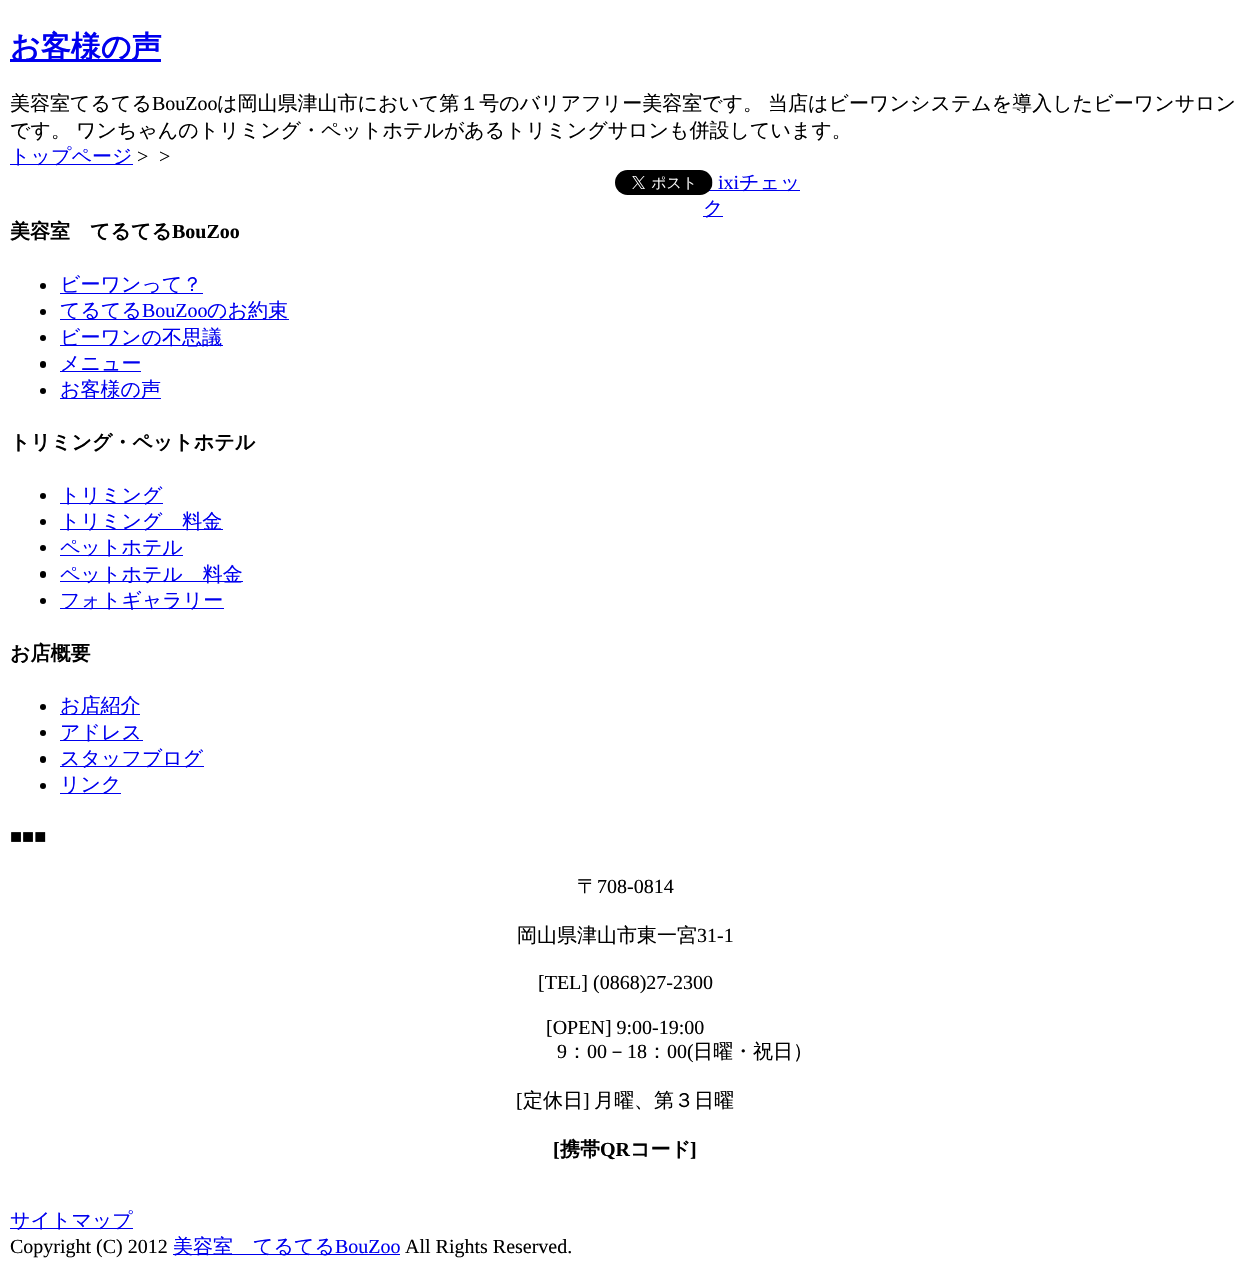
void draw(SkCanvas* canvas) {
    SkPaint paint;
    paint.setAntiAlias(true);
    auto face = [&](const char* family, int weight, float size, bool italic = false) {
        SkFontStyle style(weight, SkFontStyle::kNormal_Width,
            italic ? SkFontStyle::kItalic_Slant : SkFontStyle::kUpright_Slant);
        SkFont result(fontMgr->matchFamilyStyle(family, style), size);
        result.setSubpixel(true);
        return result;
    };
    auto write = [&](const char* s, float x, float y, const SkFont& font, SkColor color) {
        SkPaint ink(SkColor4f::FromColor(color));
        ink.setAntiAlias(true);
        canvas->drawString(s, x, y, font, ink);
    };
    auto writeSpaced = [&](const char* s, float x, float y, const SkFont& font, const SkPaint& ink, float letter, float word) {
        std::vector<SkGlyphID> glyphs(font.countText(s, strlen(s), SkTextEncoding::kUTF8));
        std::vector<float> xs(glyphs.size());
        font.textToGlyphs(s, strlen(s), SkTextEncoding::kUTF8, glyphs);
        font.getXPos(glyphs, xs, x);
        float extra = 0;
        for (size_t i = 0; i < glyphs.size(); i++) {
            xs[i] += extra;
            extra += letter + word * (glyphs[i] == font.unicharToGlyph(' '));
        }
        canvas->drawTextBlob(SkTextBlob::MakeFromPosHGlyphs(glyphs, xs, y, font), 0, 0, ink);
    };
    auto block = [&](float x, float y, float w, float h, SkColor color) {
        SkPaint ink(SkColor4f::FromColor(color));
        ink.setAntiAlias(true);
        canvas->drawRect(SkRect::MakeXYWH(x, y, w, h), ink);
    };
    auto card = [&](float x, float y, float w, float h, float radius, SkColor color) {
        SkPaint ink(SkColor4f::FromColor(color));
        ink.setAntiAlias(true);
        canvas->drawRoundRect(SkRect::MakeXYWH(x, y, w, h), radius, radius, ink);
    };
    auto paste = [&](const char* path, float x, float y, float w, float h) {
        auto image = SkImages::DeferredFromEncodedData(SkData::MakeFromFileName(path));
        canvas->drawImageRect(image, SkRect::MakeXYWH(x, y, w, h), SkSamplingOptions());
    };
    canvas->clear(SK_ColorWHITE);
    block(10, 59, 151, 3, SkColorSetRGB(0, 0, 238));
    auto kFont1 = face("WenQuanYi Zen Hei", 700, 30);
    write("お客様の声", 10, 57, kFont1, SkColorSetRGB(0, 0, 238));
    auto kFont2 = face("WenQuanYi Zen Hei", 500, 20);
    write("美容室てるてる", 10, 110, kFont2, SK_ColorBLACK);
    auto kFont3 = face("Liberation Serif", 400, 20);
    write("BouZoo", 152, 110, kFont3, SK_ColorBLACK);
    paint.setColor(SK_ColorBLACK);
    writeSpaced("は岡山県津山市において第１号のバリアフリー美容室です。 当店はビーワンシステムを導入したビーワンサロン", 217, 110, kFont2, paint, 0, -1);
    writeSpaced("です。 ワンちゃんのトリミング・ペットホテルがあるトリミングサロンも併設しています。", 10, 137, kFont2, paint, 0, -1);
    block(10, 164, 123, 1, SkColorSetRGB(0, 0, 238));
    write("トップページ", 10, 163, kFont2, SkColorSetRGB(0, 0, 238));
    write(">", 137, 163, kFont3, SK_ColorBLACK);
    write(">", 159, 163, kFont3, SK_ColorBLACK);
    block(703, 190, 97, 1, SkColorSetRGB(0, 0, 238));
    paste("pic1.png", 615, 170, 98, 25);
    write("ixi", 718, 189, kFont3, SkColorSetRGB(0, 0, 238));
    write("チェッ", 739, 189, kFont2, SkColorSetRGB(0, 0, 238));
    block(703, 216, 20, 1, SkColorSetRGB(0, 0, 238));
    write("ク", 703, 215, kFont2, SkColorSetRGB(0, 0, 238));
    auto kFont4 = face("WenQuanYi Zen Hei", 700, 20);
    write("美容室　てるてる", 10, 238, kFont4, SK_ColorBLACK);
    auto kFont5 = face("Liberation Serif", 700, 20);
    write("BouZoo", 172, 238, kFont5, SK_ColorBLACK);
    canvas->drawCircle(43, 286, 3, paint);
    block(60, 293, 143, 1, SkColorSetRGB(0, 0, 238));
    write("ビーワンって？", 60, 291, kFont2, SkColorSetRGB(0, 0, 238));
    canvas->drawCircle(43, 312, 3, paint);
    block(60, 319, 229, 1, SkColorSetRGB(0, 0, 238));
    write("てるてる", 60, 317, kFont2, SkColorSetRGB(0, 0, 238));
    write("BouZoo", 142, 317, kFont3, SkColorSetRGB(0, 0, 238));
    write("のお約束", 207, 317, kFont2, SkColorSetRGB(0, 0, 238));
    canvas->drawCircle(43, 338, 3, paint);
    block(60, 345, 163, 1, SkColorSetRGB(0, 0, 238));
    write("ビーワンの不思議", 60, 344, kFont2, SkColorSetRGB(0, 0, 238));
    card(40, 361, 6, 7, 3, SK_ColorBLACK);
    block(60, 371, 81, 1, SkColorSetRGB(0, 0, 238));
    write("メニュー", 60, 370, kFont2, SkColorSetRGB(0, 0, 238));
    canvas->drawCircle(43, 391, 3, paint);
    block(60, 398, 101, 1, SkColorSetRGB(0, 0, 238));
    write("お客様の声", 60, 396, kFont2, SkColorSetRGB(0, 0, 238));
    write("トリミング・ペットホテル", 10, 449, kFont4, SK_ColorBLACK);
    canvas->drawCircle(43, 496, 3, paint);
    block(60, 503, 103, 1, SkColorSetRGB(0, 0, 238));
    write("トリミング", 60, 502, kFont2, SkColorSetRGB(0, 0, 238));
    canvas->drawCircle(43, 522, 3, paint);
    block(60, 529, 163, 1, SkColorSetRGB(0, 0, 238));
    write("トリミング　料金", 60, 528, kFont2, SkColorSetRGB(0, 0, 238));
    canvas->drawCircle(43, 548, 3, paint);
    block(60, 555, 123, 1, SkColorSetRGB(0, 0, 238));
    write("ペットホテル", 60, 554, kFont2, SkColorSetRGB(0, 0, 238));
    card(40, 571, 6, 7, 3, SK_ColorBLACK);
    block(60, 581, 183, 1, SkColorSetRGB(0, 0, 238));
    write("ペットホテル　料金", 60, 581, kFont2, SkColorSetRGB(0, 0, 238));
    canvas->drawCircle(43, 601, 3, paint);
    block(60, 608, 164, 1, SkColorSetRGB(0, 0, 238));
    write("フォトギャラリー", 60, 607, kFont2, SkColorSetRGB(0, 0, 238));
    write("お店概要", 10, 660, kFont4, SK_ColorBLACK);
    canvas->drawCircle(43, 707, 3, paint);
    block(60, 714, 80, 1, SkColorSetRGB(0, 0, 238));
    write("お店紹介", 60, 712, kFont2, SkColorSetRGB(0, 0, 238));
    canvas->drawCircle(43, 733, 3, paint);
    block(60, 740, 83, 1, SkColorSetRGB(0, 0, 238));
    write("アドレス", 60, 739, kFont2, SkColorSetRGB(0, 0, 238));
    card(40, 756, 6, 7, 3, SK_ColorBLACK);
    block(60, 766, 144, 1, SkColorSetRGB(0, 0, 238));
    write("スタッフブログ", 60, 765, kFont2, SkColorSetRGB(0, 0, 238));
    canvas->drawCircle(43, 786, 3, paint);
    block(60, 793, 61, 1, SkColorSetRGB(0, 0, 238));
    write("リンク", 60, 791, kFont2, SkColorSetRGB(0, 0, 238));
    write("■■■", 10, 843, kFont5, SK_ColorBLACK);
    write("〒", 577, 893, kFont2, SK_ColorBLACK);
    write("708-0814", 597, 893, kFont3, SK_ColorBLACK);
    write("岡山県津山市東一宮", 517, 942, kFont2, SK_ColorBLACK);
    write("31-1", 697, 942, kFont3, SK_ColorBLACK);
    write("[TEL] (0868)27-2300", 538, 989, kFont3, SK_ColorBLACK);
    write("[OPEN] 9:00-19:00", 546, 1034, kFont3, SK_ColorBLACK);
    write("9", 557, 1058, kFont3, SK_ColorBLACK);
    write("：", 567, 1058, kFont2, SK_ColorBLACK);
    write("00", 587, 1058, kFont3, SK_ColorBLACK);
    write("－", 607, 1058, kFont2, SK_ColorBLACK);
    write("18", 627, 1058, kFont3, SK_ColorBLACK);
    write("：", 647, 1058, kFont2, SK_ColorBLACK);
    write("00(", 667, 1058, kFont3, SK_ColorBLACK);
    write("日曜・祝日）", 693, 1058, kFont2, SK_ColorBLACK);
    write("[", 516, 1107, kFont3, SK_ColorBLACK);
    write("定休日", 523, 1107, kFont2, SK_ColorBLACK);
    write("]", 583, 1107, kFont3, SK_ColorBLACK);
    write("月曜、第３日曜", 594, 1107, kFont2, SK_ColorBLACK);
    write("[", 553, 1156, kFont5, SK_ColorBLACK);
    write("携帯", 560, 1156, kFont4, SK_ColorBLACK);
    write("QR", 600, 1156, kFont5, SK_ColorBLACK);
    write("コード", 630, 1156, kFont4, SK_ColorBLACK);
    write("]", 690, 1156, kFont5, SK_ColorBLACK);
    block(10, 1228, 123, 1, SkColorSetRGB(0, 0, 238));
    write("サイトマップ", 10, 1227, kFont2, SkColorSetRGB(0, 0, 238));
    write("Copyright (C) 2012", 10, 1253, kFont3, SK_ColorBLACK);
    block(173, 1254, 227, 1, SkColorSetRGB(0, 0, 238));
    write("美容室　てるてる", 173, 1253, kFont2, SkColorSetRGB(0, 0, 238));
    write("BouZoo", 335, 1253, kFont3, SkColorSetRGB(0, 0, 238));
    write("All Rights Reserved.", 405, 1253, kFont3, SK_ColorBLACK);
}
